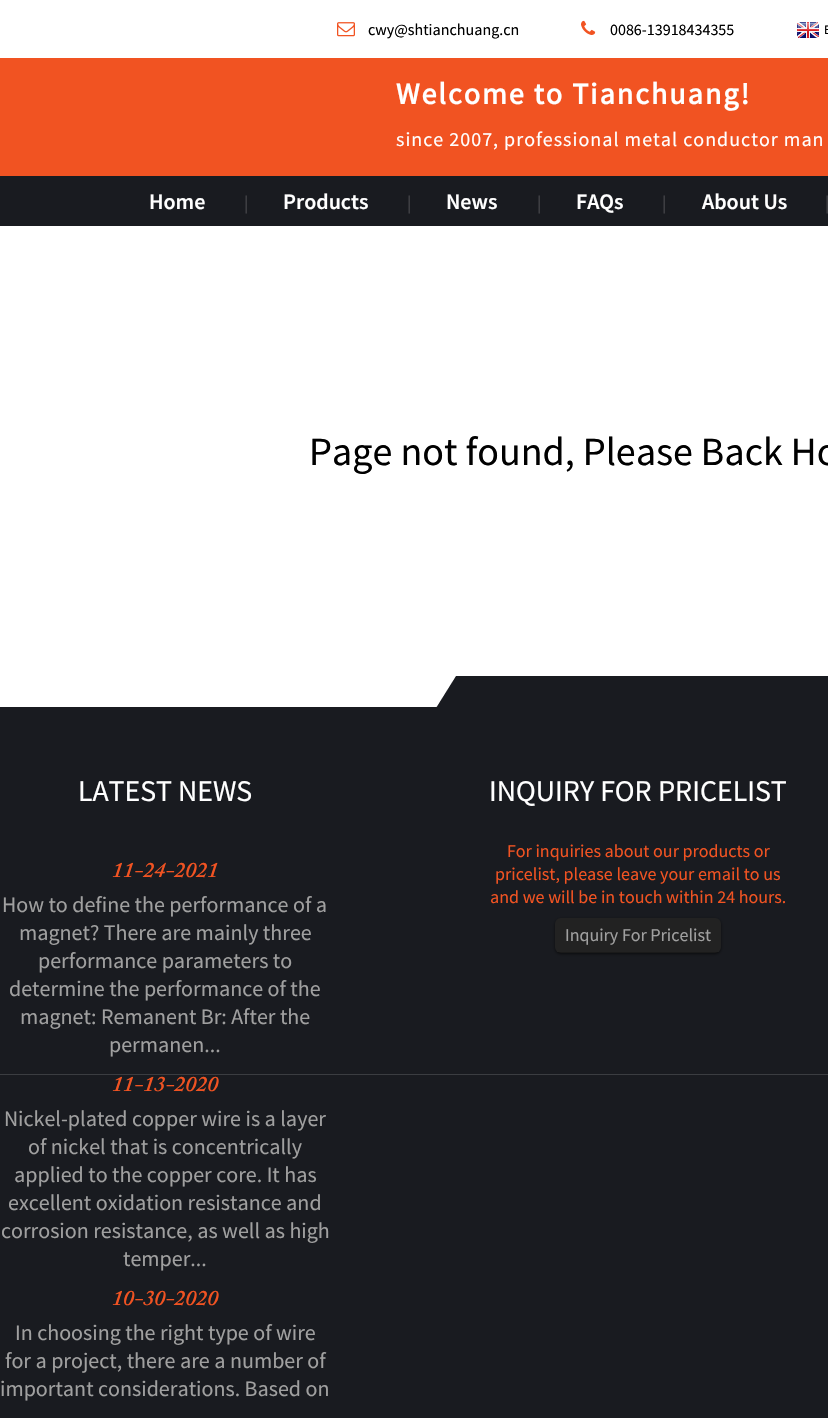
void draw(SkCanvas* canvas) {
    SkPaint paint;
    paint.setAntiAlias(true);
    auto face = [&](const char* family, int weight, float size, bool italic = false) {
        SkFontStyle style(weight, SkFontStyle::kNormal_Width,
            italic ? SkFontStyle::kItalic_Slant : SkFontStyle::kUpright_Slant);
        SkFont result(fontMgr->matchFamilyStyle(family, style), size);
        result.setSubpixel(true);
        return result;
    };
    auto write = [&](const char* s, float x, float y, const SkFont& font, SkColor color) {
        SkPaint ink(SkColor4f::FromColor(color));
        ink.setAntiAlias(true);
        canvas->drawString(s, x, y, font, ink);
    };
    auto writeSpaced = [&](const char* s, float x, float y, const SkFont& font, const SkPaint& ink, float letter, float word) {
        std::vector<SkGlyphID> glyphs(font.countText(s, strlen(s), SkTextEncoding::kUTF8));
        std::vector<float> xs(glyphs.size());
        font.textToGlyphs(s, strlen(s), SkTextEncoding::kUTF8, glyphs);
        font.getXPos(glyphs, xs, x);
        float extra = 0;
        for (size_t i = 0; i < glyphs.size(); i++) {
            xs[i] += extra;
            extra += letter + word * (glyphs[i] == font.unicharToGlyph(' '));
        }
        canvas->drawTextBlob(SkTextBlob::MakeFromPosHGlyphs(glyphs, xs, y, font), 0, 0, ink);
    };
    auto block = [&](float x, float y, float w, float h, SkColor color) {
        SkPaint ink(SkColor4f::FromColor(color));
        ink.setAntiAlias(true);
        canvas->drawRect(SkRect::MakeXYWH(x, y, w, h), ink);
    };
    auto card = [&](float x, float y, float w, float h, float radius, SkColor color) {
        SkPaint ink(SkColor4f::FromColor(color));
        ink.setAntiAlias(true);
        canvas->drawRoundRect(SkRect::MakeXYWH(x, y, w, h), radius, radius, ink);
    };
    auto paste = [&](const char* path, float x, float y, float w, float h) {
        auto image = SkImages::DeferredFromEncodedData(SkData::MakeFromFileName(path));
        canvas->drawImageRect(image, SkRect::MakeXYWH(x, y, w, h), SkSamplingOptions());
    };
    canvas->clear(SK_ColorWHITE);
    paste("pic1.png", 337, 22, 18, 15);
    auto kFont1 = face("Source Sans Pro", 400, 16);
    write("cwy@shtianchuang.cn", 368, 35, kFont1, SK_ColorBLACK);
    paste("pic2.png", 581, 20, 15, 15);
    write("0086-13918434355", 610, 35, kFont1, SK_ColorBLACK);
    paste("pic3.png", 797, 22, 22, 16);
    auto kFont2 = face("Source Sans Pro", 400, 13);
    write("E", 824, 34, kFont2, SK_ColorBLACK);
    block(0, 58, 828, 118, SkColorSetRGB(241, 83, 34));
    auto kFont3 = face("Source Sans Pro", 700, 30);
    paint.setColor(SK_ColorWHITE);
    writeSpaced("Welcome to Tianchuang!", 396, 104, kFont3, paint, 2, 0);
    auto kFont4 = face("Source Sans Pro", 400, 20);
    writeSpaced("since 2007, professional metal conductor man", 396, 146, kFont4, paint, 1, 0);
    block(0, 176, 828, 50, SkColorSetRGB(25, 27, 32));
    auto kFont5 = face("Source Sans Pro", 600, 22);
    write("Home", 149, 209, kFont5, SK_ColorWHITE);
    auto kFont6 = face("Source Sans Pro", 400, 18);
    write("|", 244, 209, kFont6, SkColorSetRGB(71, 72, 76));
    write("Products", 283, 209, kFont5, SK_ColorWHITE);
    write("|", 407, 209, kFont6, SkColorSetRGB(71, 72, 76));
    write("News", 446, 209, kFont5, SK_ColorWHITE);
    write("|", 537, 209, kFont6, SkColorSetRGB(71, 72, 76));
    write("FAQs", 576, 209, kFont5, SK_ColorWHITE);
    write("|", 662, 209, kFont6, SkColorSetRGB(71, 72, 76));
    write("About Us", 702, 209, kFont5, SK_ColorWHITE);
    write("|", 825, 209, kFont6, SkColorSetRGB(71, 72, 76));
    auto kFont7 = face("Source Sans Pro", 400, 40);
    write("Page not found, Please Back Ho", 309, 465, kFont7, SK_ColorBLACK);
    block(0, 676, 828, 742, SkColorSetRGB(25, 27, 32));
    block(0, 676, 456, 31, SK_ColorWHITE);
    paste("pic4.png", 436, 676, 20, 31);
    block(0, 1074, 828, 1, SkColorSetRGB(59, 61, 65));
    auto kFont8 = face("Source Sans Pro", 400, 30);
    write("LATEST NEWS", 78, 801, kFont8, SK_ColorWHITE);
    auto kFont9 = face("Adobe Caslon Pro", 600, 22, true);
    write("11-24-2021", 112, 877, kFont9, SkColorSetRGB(241, 83, 34));
    auto kFont10 = face("Source Sans Pro", 400, 22);
    write("How to define the performance of a", 2, 912, kFont10, SkColorSetRGB(160, 160, 160));
    write("magnet? There are mainly three", 19, 940, kFont10, SkColorSetRGB(160, 160, 160));
    write("performance parameters to", 38, 968, kFont10, SkColorSetRGB(160, 160, 160));
    write("determine the performance of the", 9, 996, kFont10, SkColorSetRGB(160, 160, 160));
    write("magnet: Remanent Br: After the", 20, 1024, kFont10, SkColorSetRGB(160, 160, 160));
    write("permanen...", 109, 1052, kFont10, SkColorSetRGB(160, 160, 160));
    write("11-13-2020", 112, 1091, kFont9, SkColorSetRGB(241, 83, 34));
    write("Nickel-plated copper wire is a layer", 4, 1126, kFont10, SkColorSetRGB(160, 160, 160));
    write("of nickel that is concentrically", 28, 1154, kFont10, SkColorSetRGB(160, 160, 160));
    write("applied to the copper core. It has", 14, 1182, kFont10, SkColorSetRGB(160, 160, 160));
    write("excellent oxidation resistance and", 8, 1210, kFont10, SkColorSetRGB(160, 160, 160));
    write("corrosion resistance, as well as high", 1, 1238, kFont10, SkColorSetRGB(160, 160, 160));
    write("temper...", 123, 1266, kFont10, SkColorSetRGB(160, 160, 160));
    write("10-30-2020", 112, 1305, kFont9, SkColorSetRGB(241, 83, 34));
    write("In choosing the right type of wire", 15, 1340, kFont10, SkColorSetRGB(160, 160, 160));
    write("for a project, there are a number of", 5, 1368, kFont10, SkColorSetRGB(160, 160, 160));
    write("important considerations. Based on", 0, 1396, kFont10, SkColorSetRGB(160, 160, 160));
    write("INQUIRY FOR PRICELIST", 489, 801, kFont8, SK_ColorWHITE);
    write("For inquiries about our products or", 507, 857, kFont6, SkColorSetRGB(241, 83, 34));
    write("pricelist, please leave your email to us", 495, 880, kFont6, SkColorSetRGB(241, 83, 34));
    write("and we will be in touch within 24 hours.", 490, 903, kFont6, SkColorSetRGB(241, 83, 34));
    paint.setColor(SkColorSetARGB(153, 0, 0, 0));
    paint.setMaskFilter(SkMaskFilter::MakeBlur(kNormal_SkBlurStyle, 1.5f));
    canvas->drawRoundRect(SkRect::MakeXYWH(555, 919, 166, 35), 6, 6, paint);
    paint.setMaskFilter(nullptr);
    card(555, 918, 166, 35, 6, SkColorSetRGB(34, 34, 34));
    block(558, 952, 160, 1, SkColorSetARGB(64, 0, 0, 0));
    write("Inquiry For Pricelist", 565, 941, kFont6, SkColorSetRGB(160, 160, 160));
}
